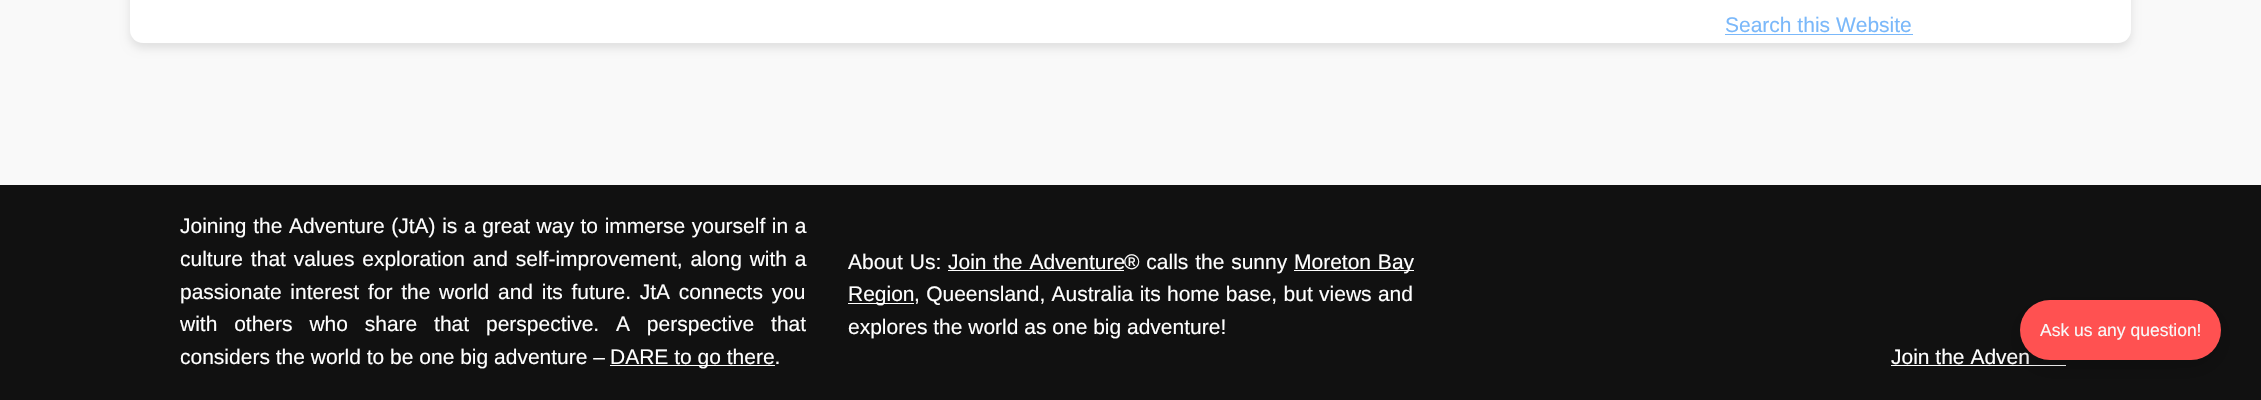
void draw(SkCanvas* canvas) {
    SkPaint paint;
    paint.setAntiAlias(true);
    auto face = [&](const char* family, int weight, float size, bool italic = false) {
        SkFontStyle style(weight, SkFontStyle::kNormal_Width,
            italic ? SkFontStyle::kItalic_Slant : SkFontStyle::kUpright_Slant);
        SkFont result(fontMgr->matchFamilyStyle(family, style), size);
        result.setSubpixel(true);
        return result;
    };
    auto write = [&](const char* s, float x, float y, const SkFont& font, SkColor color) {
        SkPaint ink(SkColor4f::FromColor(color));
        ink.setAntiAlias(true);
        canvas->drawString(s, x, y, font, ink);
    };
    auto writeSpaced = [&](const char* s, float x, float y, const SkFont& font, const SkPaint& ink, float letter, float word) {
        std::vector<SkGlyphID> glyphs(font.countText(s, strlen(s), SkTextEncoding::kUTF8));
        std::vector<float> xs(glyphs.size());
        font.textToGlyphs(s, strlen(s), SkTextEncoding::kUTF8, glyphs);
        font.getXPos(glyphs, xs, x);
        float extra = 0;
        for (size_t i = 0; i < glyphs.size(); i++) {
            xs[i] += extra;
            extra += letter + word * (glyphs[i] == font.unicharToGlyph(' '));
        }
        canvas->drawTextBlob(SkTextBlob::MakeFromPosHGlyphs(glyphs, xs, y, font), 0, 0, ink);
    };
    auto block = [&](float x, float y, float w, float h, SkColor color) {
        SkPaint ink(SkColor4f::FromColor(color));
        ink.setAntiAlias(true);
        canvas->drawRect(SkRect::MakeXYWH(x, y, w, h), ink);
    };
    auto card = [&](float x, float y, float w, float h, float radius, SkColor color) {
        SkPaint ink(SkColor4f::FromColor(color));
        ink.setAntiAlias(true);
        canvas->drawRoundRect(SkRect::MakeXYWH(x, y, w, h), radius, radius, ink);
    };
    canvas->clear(SkColorSetRGB(249, 249, 249));
    paint.setColor(SkColorSetARGB(26, 0, 0, 0));
    paint.setMaskFilter(SkMaskFilter::MakeBlur(kNormal_SkBlurStyle, 5));
    canvas->drawRoundRect(SkRect::MakeXYWH(130, -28, 2001, 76), 13, 13, paint);
    paint.setMaskFilter(nullptr);
    card(130, -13, 2001, 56, 13, SK_ColorWHITE);
    auto kFont1 = face("Liberation Sans", 400, 21);
    write("Search this Website", 1725, 32, kFont1, SkColorSetRGB(122, 184, 250));
    block(1725, 34, 188, 1, SkColorSetRGB(122, 184, 250));
    block(0, 185, 2261, 215, SkColorSetRGB(17, 17, 17));
    paint.setColor(SK_ColorWHITE);
    writeSpaced("Joining the Adventure (JtA) is a great way to immerse yourself in a", 180, 233, kFont1, paint, 0, 0.75f);
    writeSpaced("culture that values exploration and self-improvement, along with a", 180, 266, kFont1, paint, 0, 2);
    writeSpaced("passionate interest for the world and its future. JtA connects you", 180, 299, kFont1, paint, 0, 2.9f);
    writeSpaced("with others who share that perspective. A perspective that", 180, 331, kFont1, paint, 0, 11);
    write("considers the world to be one big adventure –", 180, 364, kFont1, SK_ColorWHITE);
    block(610, 365, 165, 1, SK_ColorWHITE);
    write("DARE to go there.", 610, 364, kFont1, SK_ColorWHITE);
    writeSpaced("About Us:", 848, 269, kFont1, paint, 0, 1);
    writeSpaced("Join the Adventure", 948, 269, kFont1, paint, 0, 1);
    block(948, 270, 176, 1, SK_ColorWHITE);
    writeSpaced("® calls the sunny", 1124, 269, kFont1, paint, 0, 1);
    block(1294, 270, 120, 1, SK_ColorWHITE);
    writeSpaced("Moreton Bay", 1294, 269, kFont1, paint, 0, 1);
    block(848, 303, 66, 1, SK_ColorWHITE);
    write("Region", 848, 301, kFont1, SK_ColorWHITE);
    writeSpaced(", Queensland, Australia its home base, but views and", 914, 301, kFont1, paint, 0, 0.5f);
    write("explores the world as one big adventure!", 848, 334, kFont1, SK_ColorWHITE);
    write("Join the Adven", 1891, 364, kFont1, SK_ColorWHITE);
    block(1891, 365, 175, 1, SK_ColorWHITE);
    paint.setColor(SkColorSetARGB(46, 0, 0, 0));
    paint.setMaskFilter(SkMaskFilter::MakeBlur(kNormal_SkBlurStyle, 11));
    canvas->drawRoundRect(SkRect::MakeXYWH(2020, 308, 201, 60), 30, 30, paint);
    paint.setMaskFilter(nullptr);
    card(2020, 300, 201, 60, 30, SkColorSetRGB(255, 81, 81));
    auto kFont2 = face("Liberation Sans", 400, 17.5f);
    write("Ask us any question!", 2040, 336, kFont2, SkColorSetRGB(249, 249, 249));
}
